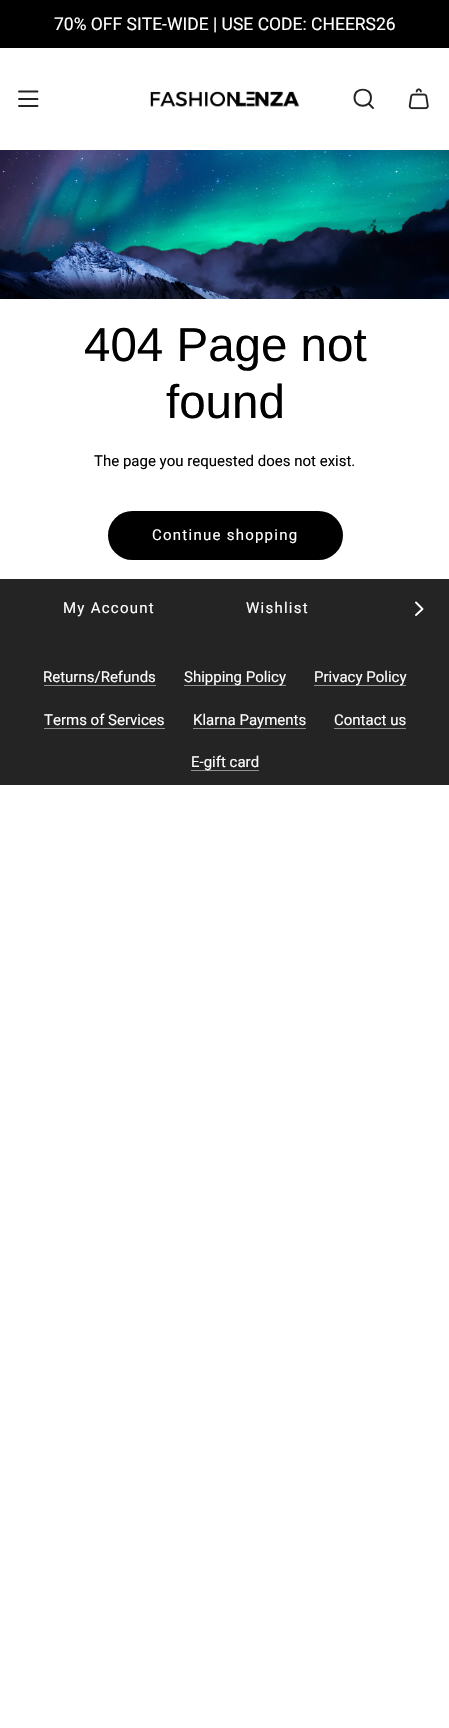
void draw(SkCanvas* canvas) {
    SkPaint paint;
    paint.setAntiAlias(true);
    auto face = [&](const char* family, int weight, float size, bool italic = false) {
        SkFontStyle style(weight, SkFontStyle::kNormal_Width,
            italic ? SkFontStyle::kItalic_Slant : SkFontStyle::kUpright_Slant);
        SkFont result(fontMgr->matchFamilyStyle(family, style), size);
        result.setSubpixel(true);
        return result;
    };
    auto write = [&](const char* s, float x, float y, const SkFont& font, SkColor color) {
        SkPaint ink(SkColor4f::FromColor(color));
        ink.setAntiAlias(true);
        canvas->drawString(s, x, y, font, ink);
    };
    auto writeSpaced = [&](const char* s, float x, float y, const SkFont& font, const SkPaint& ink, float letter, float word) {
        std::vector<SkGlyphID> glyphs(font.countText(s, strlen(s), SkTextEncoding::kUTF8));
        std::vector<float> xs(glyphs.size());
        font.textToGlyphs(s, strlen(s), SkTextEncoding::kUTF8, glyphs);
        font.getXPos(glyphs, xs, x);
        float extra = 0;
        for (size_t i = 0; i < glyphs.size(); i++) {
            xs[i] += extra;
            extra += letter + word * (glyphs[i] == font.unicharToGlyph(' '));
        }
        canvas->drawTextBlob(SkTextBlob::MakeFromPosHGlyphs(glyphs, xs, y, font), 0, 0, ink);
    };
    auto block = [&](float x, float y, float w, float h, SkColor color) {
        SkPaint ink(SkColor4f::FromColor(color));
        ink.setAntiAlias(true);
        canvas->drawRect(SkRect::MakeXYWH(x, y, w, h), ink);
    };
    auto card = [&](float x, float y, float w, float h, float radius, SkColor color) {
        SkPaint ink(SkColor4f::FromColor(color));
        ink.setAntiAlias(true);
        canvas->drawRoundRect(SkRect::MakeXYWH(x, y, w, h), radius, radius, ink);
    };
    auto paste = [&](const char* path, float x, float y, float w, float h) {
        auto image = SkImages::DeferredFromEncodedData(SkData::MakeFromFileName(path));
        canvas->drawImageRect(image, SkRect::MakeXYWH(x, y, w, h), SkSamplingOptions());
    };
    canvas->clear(SK_ColorWHITE);
    block(0, 0, 449, 48, SK_ColorBLACK);
    auto kFont1 = face("Roboto", 400, 17.5f);
    write("70% OFF SITE-WIDE | USE CODE: CHEERS26", 54, 30, kFont1, SK_ColorWHITE);
    paint.setStyle(SkPaint::kStroke_Style);
    paint.setStrokeWidth(1.9f);
    paint.setStrokeCap(SkPaint::kRound_Cap);
    paint.setStrokeJoin(SkPaint::kRound_Join);
    paint.setColor(SkColorSetRGB(36, 36, 36));
    canvas->drawPath(SkPathBuilder().moveTo(19, 91.5f).lineTo(37.5f, 91.5f).moveTo(19, 99).lineTo(37.5f, 99).moveTo(19, 106).lineTo(37.5f, 106).detach(), paint);
    paste("pic1.png", 150, 91, 150, 16);
    canvas->drawPath(SkPathBuilder().moveTo(369, 104).lineTo(373, 108).moveTo(354.5f, 97.5f).cubicTo(354.5f, 108.5f, 371, 108.5f, 371, 97.5f).cubicTo(371, 87, 354.5f, 87, 354.5f, 97.5f).close().detach(), paint);
    paste("pic2.png", 408, 88, 21, 22);
    paste("pic3.png", 0, 150, 449, 149);
    auto kFont2 = face("Liberation Sans", 400, 47.5f);
    write("404 Page not", 84, 361, kFont2, SK_ColorBLACK);
    write("found", 166, 418, kFont2, SK_ColorBLACK);
    auto kFont3 = face("Roboto", 400, 15);
    write("The page you requested does not exist.", 94, 466, kFont3, SK_ColorBLACK);
    card(108, 511, 235, 49, 24.5f, SK_ColorBLACK);
    paint.setStyle(SkPaint::kFill_Style);
    paint.setColor(SK_ColorWHITE);
    writeSpaced("Continue shopping", 152, 540, kFont3, paint, 1.25f, 0);
    block(0, 579, 449, 206, SkColorSetRGB(36, 36, 36));
    writeSpaced("My Account", 63, 613, kFont3, paint, 1.25f, 0);
    writeSpaced("Wishlist", 246, 613, kFont3, paint, 1.25f, 0);
    paint.setStyle(SkPaint::kStroke_Style);
    canvas->drawPath(SkPathBuilder().moveTo(416, 602.5f).lineTo(422.5f, 609).lineTo(416, 615).detach(), paint);
    write("Returns/Refunds", 43, 682, kFont3, SK_ColorWHITE);
    block(44, 685, 112, 1, SkColorSetRGB(146, 146, 146));
    block(184, 685, 102, 1, SkColorSetRGB(146, 146, 146));
    write("Shipping Policy", 184, 682, kFont3, SK_ColorWHITE);
    block(314, 685, 92, 1, SkColorSetRGB(146, 146, 146));
    write("Privacy Policy", 314, 682, kFont3, SK_ColorWHITE);
    write("Terms of Services", 44, 725, kFont3, SK_ColorWHITE);
    block(44, 728, 121, 1, SkColorSetRGB(146, 146, 146));
    block(193, 728, 113, 1, SkColorSetRGB(146, 146, 146));
    write("Klarna Payments", 193, 725, kFont3, SK_ColorWHITE);
    write("Contact us", 334, 725, kFont3, SK_ColorWHITE);
    block(334, 728, 72, 1, SkColorSetRGB(146, 146, 146));
    block(191, 770, 68, 1, SkColorSetRGB(146, 146, 146));
    write("E-gift card", 191, 767, kFont3, SK_ColorWHITE);
}
